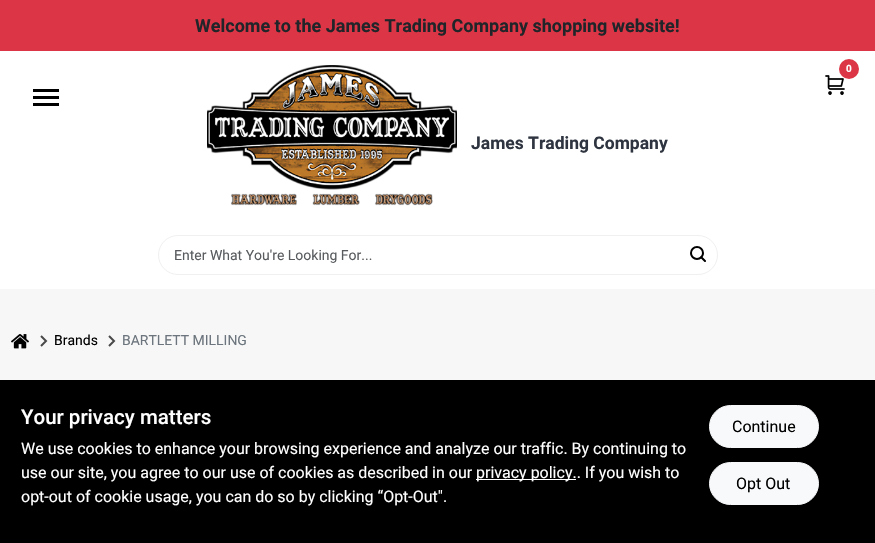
void draw(SkCanvas* canvas) {
    SkPaint paint;
    paint.setAntiAlias(true);
    auto face = [&](const char* family, int weight, float size, bool italic = false) {
        SkFontStyle style(weight, SkFontStyle::kNormal_Width,
            italic ? SkFontStyle::kItalic_Slant : SkFontStyle::kUpright_Slant);
        SkFont result(fontMgr->matchFamilyStyle(family, style), size);
        result.setSubpixel(true);
        return result;
    };
    auto write = [&](const char* s, float x, float y, const SkFont& font, SkColor color) {
        SkPaint ink(SkColor4f::FromColor(color));
        ink.setAntiAlias(true);
        canvas->drawString(s, x, y, font, ink);
    };
    auto writeSpaced = [&](const char* s, float x, float y, const SkFont& font, const SkPaint& ink, float letter, float word) {
        std::vector<SkGlyphID> glyphs(font.countText(s, strlen(s), SkTextEncoding::kUTF8));
        std::vector<float> xs(glyphs.size());
        font.textToGlyphs(s, strlen(s), SkTextEncoding::kUTF8, glyphs);
        font.getXPos(glyphs, xs, x);
        float extra = 0;
        for (size_t i = 0; i < glyphs.size(); i++) {
            xs[i] += extra;
            extra += letter + word * (glyphs[i] == font.unicharToGlyph(' '));
        }
        canvas->drawTextBlob(SkTextBlob::MakeFromPosHGlyphs(glyphs, xs, y, font), 0, 0, ink);
    };
    auto block = [&](float x, float y, float w, float h, SkColor color) {
        SkPaint ink(SkColor4f::FromColor(color));
        ink.setAntiAlias(true);
        canvas->drawRect(SkRect::MakeXYWH(x, y, w, h), ink);
    };
    auto paste = [&](const char* path, float x, float y, float w, float h) {
        auto image = SkImages::DeferredFromEncodedData(SkData::MakeFromFileName(path));
        canvas->drawImageRect(image, SkRect::MakeXYWH(x, y, w, h), SkSamplingOptions());
    };
    canvas->clear(SkColorSetRGB(247, 247, 247));
    block(0, 0, 875, 51, SkColorSetRGB(220, 53, 69));
    auto kFont1 = face("Roboto", 700, 18);
    write("Welcome to the James Trading Company shopping website!", 195, 32, kFont1, SkColorSetRGB(33, 37, 41));
    block(0, 51, 875, 238, SK_ColorWHITE);
    paste("pic1.png", 825, 75, 20, 20);
    paint.setColor(SkColorSetRGB(220, 53, 69));
    canvas->drawCircle(849, 69, 10, paint);
    auto kFont2 = face("Roboto", 700, 10);
    paint.setColor(SK_ColorWHITE);
    writeSpaced("0", 846, 72, kFont2, paint, -1, 0);
    block(33, 89, 26, 3, SK_ColorBLACK);
    block(33, 96, 26, 3, SK_ColorBLACK);
    block(33, 103, 26, 3, SK_ColorBLACK);
    paste("pic2.png", 207, 65, 250, 141);
    auto kFont3 = face("Roboto", 700, 17.5f);
    write("James Trading Company", 471, 149, kFont3, SkColorSetRGB(47, 53, 64));
    paint.setStyle(SkPaint::kStroke_Style);
    paint.setStrokeWidth(1);
    paint.setColor(SkColorSetRGB(240, 240, 240));
    canvas->drawRoundRect(SkRect::MakeXYWH(158.5f, 235.5f, 559, 39), 19.5f, 19.5f, paint);
    auto kFont4 = face("Roboto", 400, 14);
    write("Enter What You're Looking For...", 174, 260, kFont4, SkColorSetRGB(89, 92, 95));
    paste("pic3.png", 690, 246, 16, 16);
    paste("pic4.png", 11, 334, 18, 15);
    paint.setStrokeWidth(2);
    paint.setColor(SkColorSetRGB(73, 73, 73));
    canvas->drawPath(SkPathBuilder().moveTo(41, 336).lineTo(46, 341).lineTo(41, 346).detach(), paint);
    write("Brands", 54, 345, kFont4, SK_ColorBLACK);
    canvas->drawPath(SkPathBuilder().moveTo(109, 336).lineTo(114, 341).lineTo(109, 346).detach(), paint);
    write("BARTLETT MILLING", 122, 345, kFont4, SkColorSetRGB(108, 117, 125));
    block(0, 380, 875, 163, SK_ColorBLACK);
    auto kFont5 = face("Roboto", 500, 20.5f);
    write("Your privacy matters", 21, 424, kFont5, SK_ColorWHITE);
    auto kFont6 = face("Roboto", 400, 16);
    write("We use cookies to enhance your browsing experience and analyze our traffic. By continuing to", 21, 454, kFont6, SK_ColorWHITE);
    write("use our site, you agree to our use of cookies as described in our", 21, 478, kFont6, SK_ColorWHITE);
    block(476, 479, 100, 1, SK_ColorWHITE);
    write("privacy policy.. If you wish to", 476, 478, kFont6, SK_ColorWHITE);
    write("opt-out of cookie usage, you can do so by clicking “Opt-Out\".", 21, 502, kFont6, SK_ColorWHITE);
    paint.setStyle(SkPaint::kFill_Style);
    paint.setColor(SkColorSetRGB(248, 249, 250));
    canvas->drawRoundRect(SkRect::MakeXYWH(709.5f, 405.5f, 109, 42), 21, 21, paint);
    paint.setStyle(SkPaint::kStroke_Style);
    paint.setStrokeWidth(1);
    canvas->drawRoundRect(SkRect::MakeXYWH(709.5f, 405.5f, 109, 42), 21, 21, paint);
    write("Continue", 732, 432, kFont6, SK_ColorBLACK);
    paint.setStyle(SkPaint::kFill_Style);
    canvas->drawRoundRect(SkRect::MakeXYWH(709.5f, 462.5f, 109, 42), 21, 21, paint);
    paint.setStyle(SkPaint::kStroke_Style);
    canvas->drawRoundRect(SkRect::MakeXYWH(709.5f, 462.5f, 109, 42), 21, 21, paint);
    write("Opt Out", 736, 489, kFont6, SK_ColorBLACK);
}
